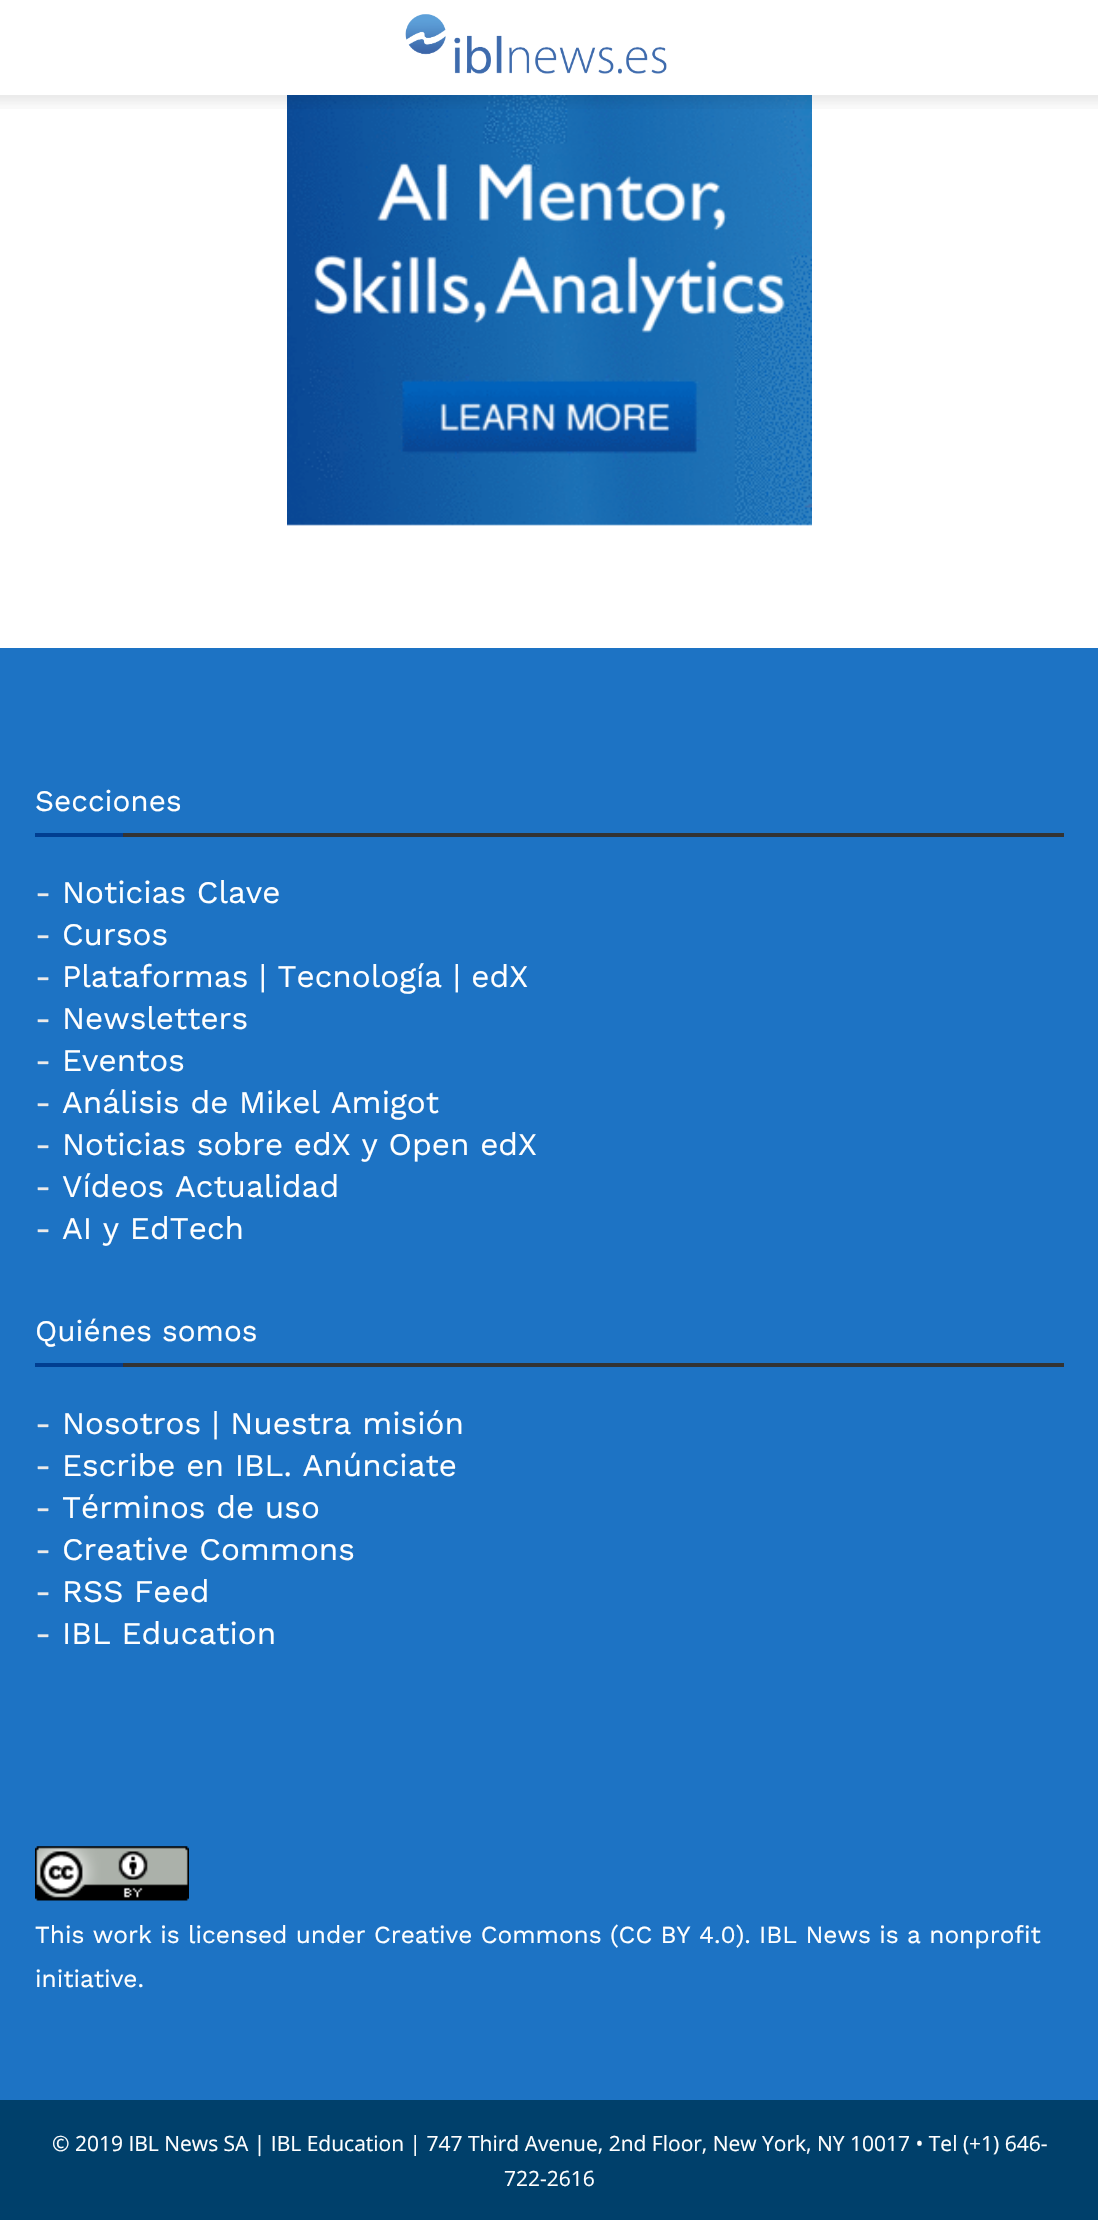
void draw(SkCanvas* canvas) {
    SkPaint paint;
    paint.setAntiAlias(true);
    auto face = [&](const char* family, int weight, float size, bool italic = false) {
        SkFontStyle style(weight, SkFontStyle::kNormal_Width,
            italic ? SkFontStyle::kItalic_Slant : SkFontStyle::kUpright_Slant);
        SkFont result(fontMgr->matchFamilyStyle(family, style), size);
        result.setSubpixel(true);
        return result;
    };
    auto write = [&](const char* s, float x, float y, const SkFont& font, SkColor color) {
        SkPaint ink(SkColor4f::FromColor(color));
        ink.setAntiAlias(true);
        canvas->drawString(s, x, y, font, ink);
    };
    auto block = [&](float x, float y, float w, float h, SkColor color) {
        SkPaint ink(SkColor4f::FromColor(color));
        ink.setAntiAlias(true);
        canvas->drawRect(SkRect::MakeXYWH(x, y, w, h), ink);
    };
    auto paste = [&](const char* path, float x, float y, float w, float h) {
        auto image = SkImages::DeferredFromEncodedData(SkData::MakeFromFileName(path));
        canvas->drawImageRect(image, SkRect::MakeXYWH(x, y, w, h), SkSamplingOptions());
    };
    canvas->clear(SK_ColorWHITE);
    paste("pic1.png", 405, 14, 262, 60);
    paste("pic3.png", 287, 95, 525, 431);
    paste("pic2.png", 0, 95, 1098, 14);
    block(0, 648, 1098, 1452, SkColorSetRGB(29, 115, 196));
    auto kFont1 = face("Work Sans", 400, 29.75f);
    write("Secciones", 35, 811, kFont1, SK_ColorWHITE);
    block(35, 833, 88, 4, SkColorSetRGB(0, 62, 145));
    block(123, 833, 941, 4, SkColorSetRGB(51, 51, 51));
    auto kFont2 = face("Work Sans", 400, 31.5f);
    write("-", 35, 903, kFont2, SkColorSetRGB(234, 234, 234));
    write("Noticias Clave", 62, 903, kFont2, SK_ColorWHITE);
    write("-", 35, 945, kFont2, SkColorSetRGB(234, 234, 234));
    write("Cursos", 62, 945, kFont2, SK_ColorWHITE);
    write("-", 35, 987, kFont2, SkColorSetRGB(234, 234, 234));
    write("Plataformas | Tecnología | edX", 62, 987, kFont2, SK_ColorWHITE);
    write("-", 35, 1029, kFont2, SkColorSetRGB(234, 234, 234));
    write("Newsletters", 62, 1029, kFont2, SK_ColorWHITE);
    write("-", 35, 1071, kFont2, SkColorSetRGB(234, 234, 234));
    write("Eventos", 62, 1071, kFont2, SK_ColorWHITE);
    write("-", 35, 1113, kFont2, SkColorSetRGB(234, 234, 234));
    write("Análisis de Mikel Amigot", 62, 1113, kFont2, SK_ColorWHITE);
    write("-", 35, 1155, kFont2, SkColorSetRGB(234, 234, 234));
    write("Noticias sobre edX y Open edX", 62, 1155, kFont2, SK_ColorWHITE);
    write("-", 35, 1197, kFont2, SkColorSetRGB(234, 234, 234));
    write("Vídeos Actualidad", 62, 1197, kFont2, SK_ColorWHITE);
    write("-", 35, 1239, kFont2, SkColorSetRGB(234, 234, 234));
    write("AI y EdTech", 62, 1239, kFont2, SK_ColorWHITE);
    write("Quiénes somos", 35, 1341, kFont1, SK_ColorWHITE);
    block(35, 1363, 88, 4, SkColorSetRGB(0, 62, 145));
    block(123, 1363, 941, 4, SkColorSetRGB(51, 51, 51));
    write("-", 35, 1434, kFont2, SkColorSetRGB(234, 234, 234));
    write("Nosotros | Nuestra misión", 62, 1434, kFont2, SK_ColorWHITE);
    write("-", 35, 1476, kFont2, SkColorSetRGB(234, 234, 234));
    write("Escribe en IBL. Anúnciate", 62, 1476, kFont2, SK_ColorWHITE);
    write("-", 35, 1518, kFont2, SkColorSetRGB(234, 234, 234));
    write("Términos de uso", 62, 1518, kFont2, SK_ColorWHITE);
    write("-", 35, 1560, kFont2, SkColorSetRGB(234, 234, 234));
    write("Creative Commons", 62, 1560, kFont2, SK_ColorWHITE);
    write("-", 35, 1602, kFont2, SkColorSetRGB(234, 234, 234));
    write("RSS Feed", 62, 1602, kFont2, SK_ColorWHITE);
    write("-", 35, 1644, kFont2, SkColorSetRGB(234, 234, 234));
    write("IBL Education", 62, 1644, kFont2, SK_ColorWHITE);
    paste("pic4.png", 35, 1846, 154, 55);
    auto kFont3 = face("Work Sans", 400, 24.5f);
    write("This work is licensed under Creative Commons (CC BY 4.0). IBL News is a nonprofit", 35, 1943, kFont3, SK_ColorWHITE);
    write("initiative.", 35, 1987, kFont3, SK_ColorWHITE);
    block(0, 2100, 1098, 120, SkColorSetRGB(0, 64, 107));
    auto kFont4 = face("Open Sans", 400, 21);
    write("© 2019 IBL News SA | IBL Education | 747 Third Avenue, 2nd Floor, New York, NY 10017 • Tel (+1) 646-", 52, 2151, kFont4, SK_ColorWHITE);
    write("722-2616", 504, 2186, kFont4, SK_ColorWHITE);
}
